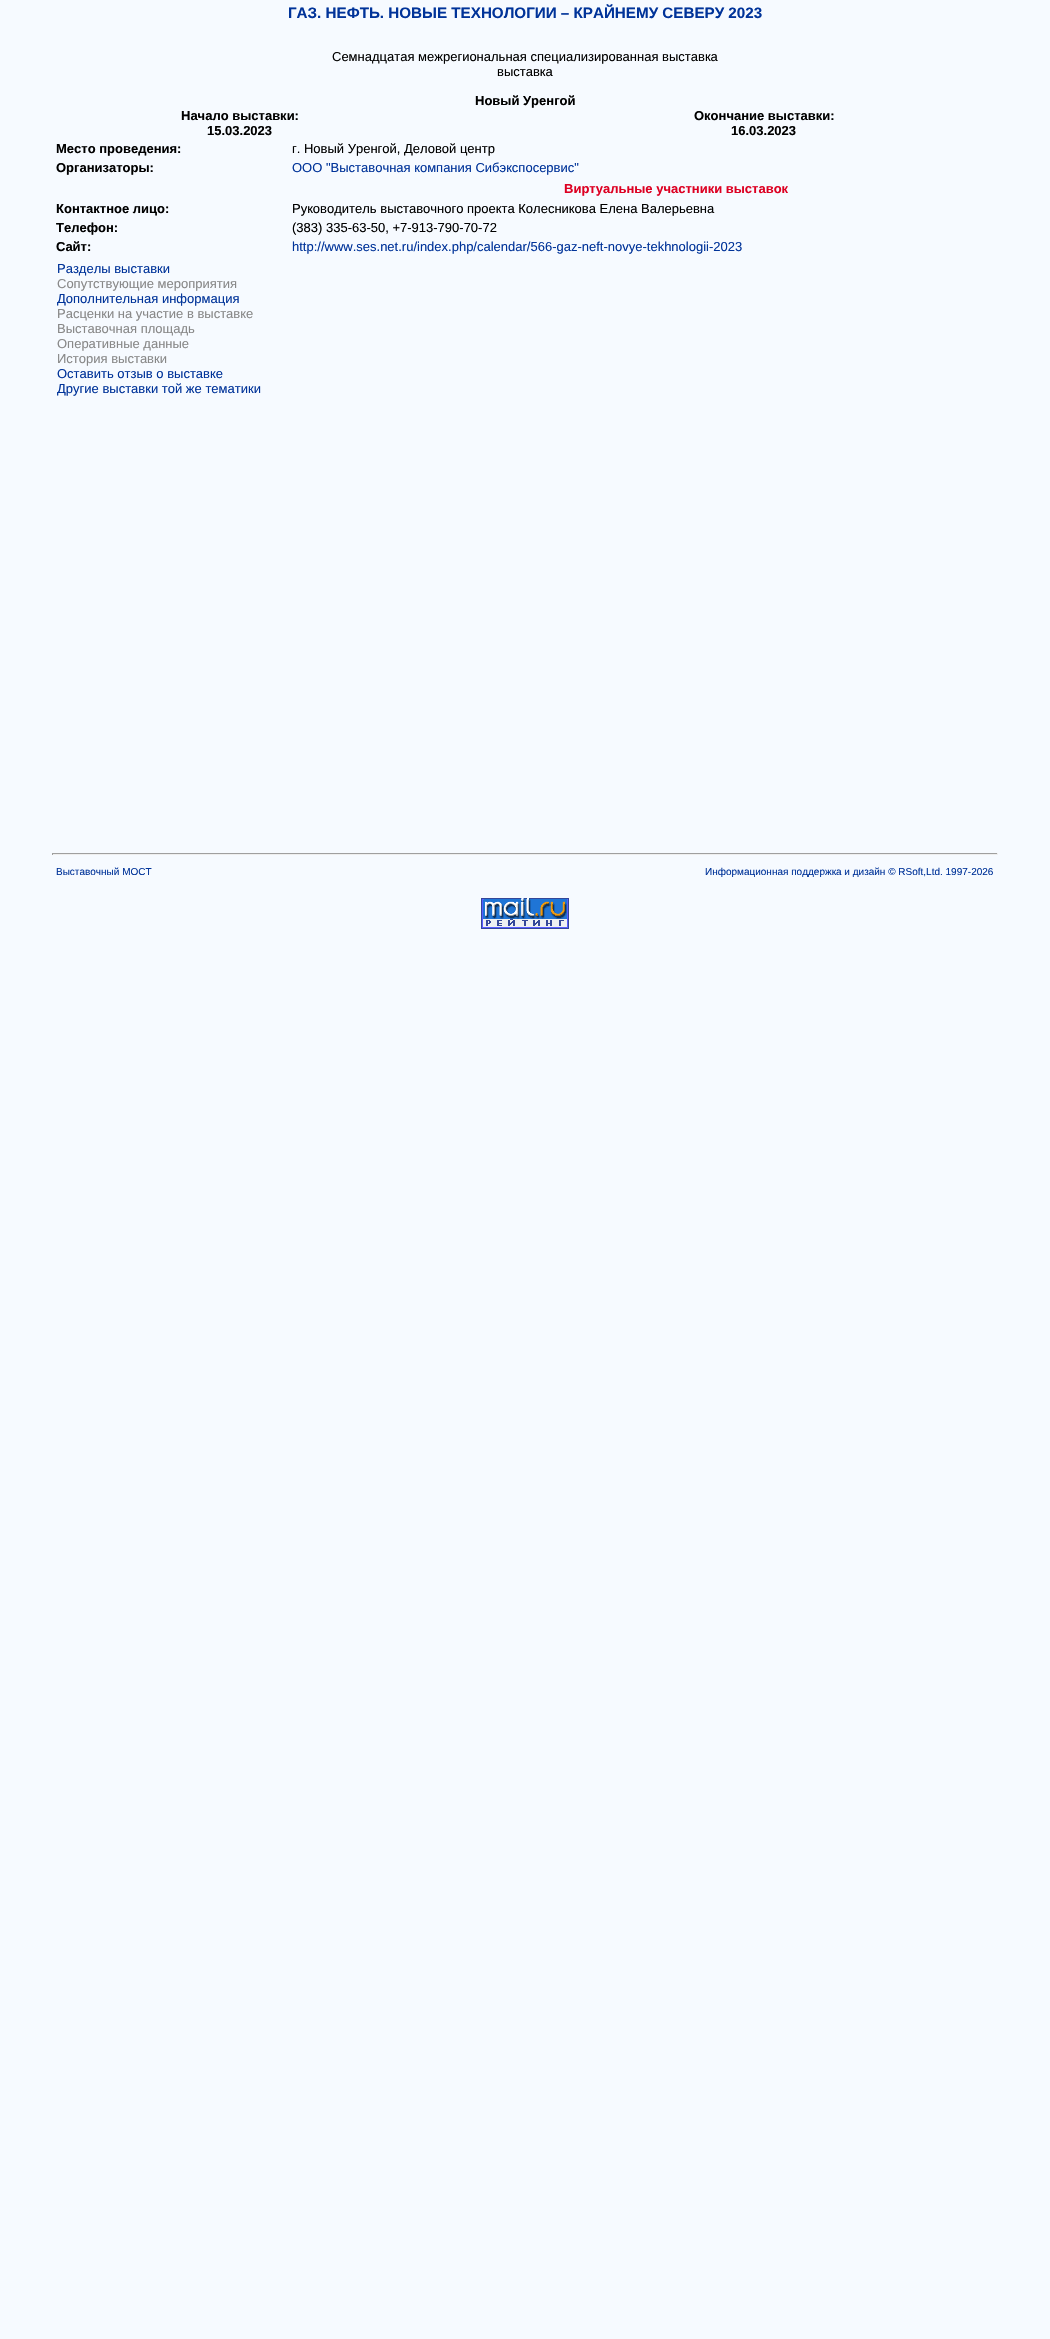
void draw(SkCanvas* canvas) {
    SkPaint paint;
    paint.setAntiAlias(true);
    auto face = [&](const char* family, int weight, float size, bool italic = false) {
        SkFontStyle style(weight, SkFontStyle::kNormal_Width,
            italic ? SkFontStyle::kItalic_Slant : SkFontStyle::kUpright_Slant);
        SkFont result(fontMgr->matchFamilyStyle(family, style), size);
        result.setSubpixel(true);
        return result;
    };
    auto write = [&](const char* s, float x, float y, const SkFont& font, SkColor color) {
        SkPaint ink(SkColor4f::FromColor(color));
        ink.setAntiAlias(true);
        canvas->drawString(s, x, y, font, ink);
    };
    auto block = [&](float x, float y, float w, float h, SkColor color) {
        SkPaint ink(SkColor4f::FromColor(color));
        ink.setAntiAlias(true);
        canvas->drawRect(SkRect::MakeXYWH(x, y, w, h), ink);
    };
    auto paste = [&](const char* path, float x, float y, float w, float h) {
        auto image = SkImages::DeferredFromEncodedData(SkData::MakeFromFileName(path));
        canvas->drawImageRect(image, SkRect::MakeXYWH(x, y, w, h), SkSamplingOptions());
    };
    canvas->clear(SkColorSetRGB(246, 250, 255));
    auto kFont1 = face("Liberation Sans", 700, 15.2f);
    write("ГАЗ. НЕФТЬ. НОВЫЕ ТЕХНОЛОГИИ – КРАЙНЕМУ СЕВЕРУ 2023", 288, 18, kFont1, SkColorSetRGB(0, 51, 153));
    auto kFont2 = face("Liberation Sans", 400, 13);
    write("Семнадцатая межрегиональная специализированная выставка", 332, 61, kFont2, SK_ColorBLACK);
    write("выставка", 497, 76, kFont2, SK_ColorBLACK);
    auto kFont3 = face("Liberation Sans", 700, 13);
    write("Новый Уренгой", 475, 105, kFont3, SK_ColorBLACK);
    write("Начало выставки:", 181, 120, kFont3, SK_ColorBLACK);
    write("15.03.2023", 207, 135, kFont3, SK_ColorBLACK);
    write("Окончание выставки:", 694, 120, kFont3, SK_ColorBLACK);
    write("16.03.2023", 731, 135, kFont3, SK_ColorBLACK);
    write("Место проведения:", 56, 153, kFont3, SK_ColorBLACK);
    write("г. Новый Уренгой, Деловой центр", 292, 153, kFont2, SK_ColorBLACK);
    write("Организаторы:", 56, 172, kFont3, SK_ColorBLACK);
    write("ООО \"Выставочная компания Сибэкспосервис\"", 292, 172, kFont2, SkColorSetRGB(0, 51, 153));
    write("Виртуальные участники выставок", 564, 193, kFont3, SkColorSetRGB(221, 0, 34));
    write("Контактное лицо:", 56, 213, kFont3, SK_ColorBLACK);
    write("Руководитель выставочного проекта Колесникова Елена Валерьевна", 292, 213, kFont2, SK_ColorBLACK);
    write("Телефон:", 56, 232, kFont3, SK_ColorBLACK);
    write("(383) 335-63-50, +7-913-790-70-72", 292, 232, kFont2, SK_ColorBLACK);
    write("Сайт:", 56, 251, kFont3, SK_ColorBLACK);
    write("http://www.ses.net.ru/index.php/calendar/566-gaz-neft-novye-tekhnologii-2023", 292, 251, kFont2, SkColorSetRGB(0, 51, 153));
    write("Разделы выставки", 57, 273, kFont2, SkColorSetRGB(0, 51, 153));
    write("Сопутствующие мероприятия", 57, 288, kFont2, SkColorSetRGB(136, 136, 136));
    write("Дополнительная информация", 57, 303, kFont2, SkColorSetRGB(0, 51, 153));
    write("Расценки на участие в выставке", 57, 318, kFont2, SkColorSetRGB(136, 136, 136));
    write("Выставочная площадь", 57, 333, kFont2, SkColorSetRGB(136, 136, 136));
    write("Оперативные данные", 57, 348, kFont2, SkColorSetRGB(136, 136, 136));
    write("История выставки", 57, 363, kFont2, SkColorSetRGB(136, 136, 136));
    write("Оставить отзыв о выставке", 57, 378, kFont2, SkColorSetRGB(0, 51, 153));
    write("Другие выставки той же тематики", 57, 393, kFont2, SkColorSetRGB(0, 51, 153));
    block(52, 853, 946, 1, SkColorSetRGB(159, 159, 159));
    block(997, 853, 1, 2, SkColorSetRGB(238, 238, 238));
    block(52, 854, 946, 1, SkColorSetRGB(238, 238, 238));
    block(52, 853, 1, 2, SkColorSetRGB(159, 159, 159));
    auto kFont4 = face("Liberation Sans", 400, 10);
    write("Выставочный МОСТ", 56, 875, kFont4, SkColorSetRGB(0, 51, 153));
    write("Информационная поддержка и дизайн © RSoft,Ltd. 1997-2026", 705, 875, kFont4, SkColorSetRGB(0, 51, 153));
    paste("pic1.png", 481, 898, 88, 31);
}
